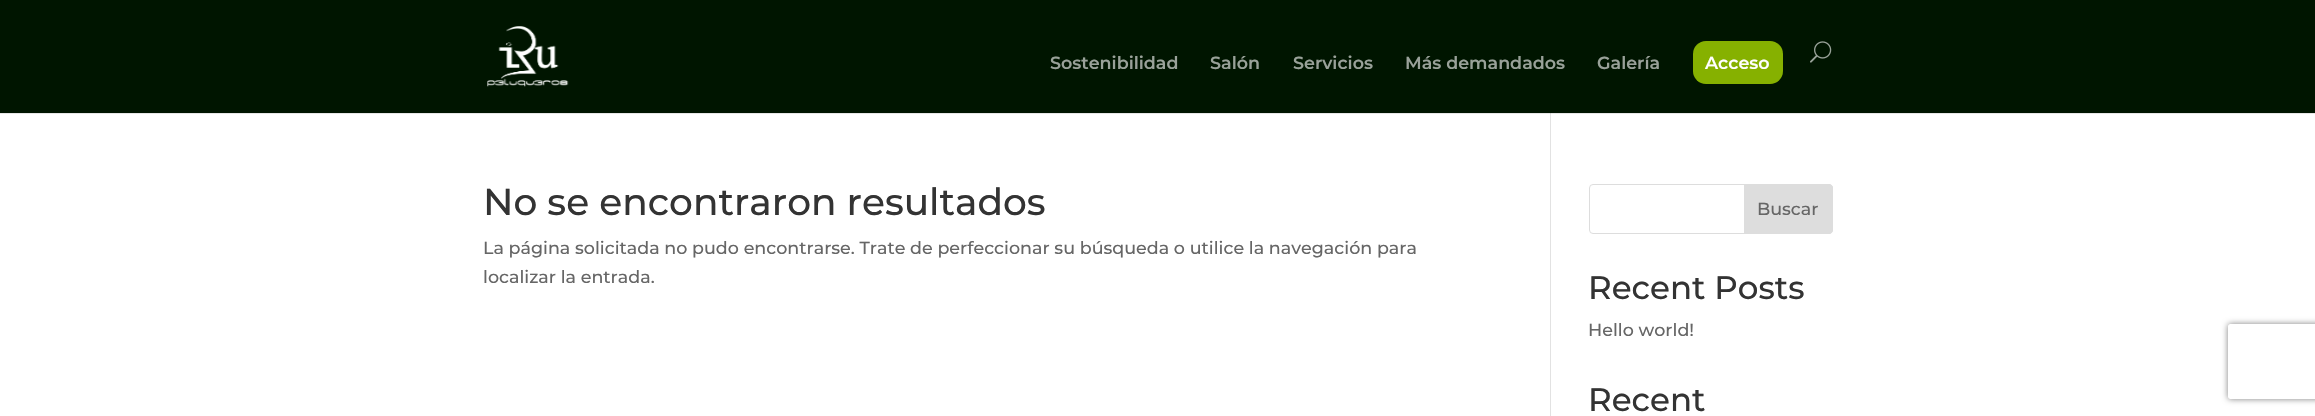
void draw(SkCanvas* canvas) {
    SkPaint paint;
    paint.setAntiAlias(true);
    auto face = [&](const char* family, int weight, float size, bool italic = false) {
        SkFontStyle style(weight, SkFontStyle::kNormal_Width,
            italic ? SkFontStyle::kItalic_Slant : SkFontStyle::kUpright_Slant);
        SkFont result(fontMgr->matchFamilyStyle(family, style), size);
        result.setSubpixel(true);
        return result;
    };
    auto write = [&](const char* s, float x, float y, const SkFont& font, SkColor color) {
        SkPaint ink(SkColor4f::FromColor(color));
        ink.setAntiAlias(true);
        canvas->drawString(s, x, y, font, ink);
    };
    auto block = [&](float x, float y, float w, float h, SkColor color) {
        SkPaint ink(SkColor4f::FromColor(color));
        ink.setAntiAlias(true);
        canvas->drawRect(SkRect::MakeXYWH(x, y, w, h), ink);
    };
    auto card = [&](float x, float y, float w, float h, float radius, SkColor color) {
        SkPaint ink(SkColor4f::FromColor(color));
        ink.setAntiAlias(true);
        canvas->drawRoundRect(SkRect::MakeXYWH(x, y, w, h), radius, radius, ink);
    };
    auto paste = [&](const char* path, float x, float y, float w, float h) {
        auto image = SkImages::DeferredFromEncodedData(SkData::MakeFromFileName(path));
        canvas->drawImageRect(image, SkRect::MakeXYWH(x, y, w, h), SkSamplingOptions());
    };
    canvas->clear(SK_ColorWHITE);
    block(0, 113, 2315, 1, SkColorSetRGB(230, 230, 230));
    block(1550, 111, 1, 305, SkColorSetRGB(226, 226, 226));
    block(1550, 112, 1, 2, SkColorSetRGB(203, 203, 203));
    block(0, 0, 2315, 113, SkColorSetRGB(0, 21, 0));
    paste("pic1.png", 487, 26, 82, 61);
    auto kFont1 = face("Montserrat", 600, 17.5f);
    write("Sostenibilidad", 1050, 69, kFont1, SkColorSetRGB(153, 161, 153));
    write("Salón", 1210, 69, kFont1, SkColorSetRGB(153, 161, 153));
    write("Servicios", 1293, 69, kFont1, SkColorSetRGB(153, 161, 153));
    write("Más demandados", 1405, 69, kFont1, SkColorSetRGB(153, 161, 153));
    write("Galería", 1597, 69, kFont1, SkColorSetRGB(153, 161, 153));
    card(1693, 41, 90, 43, 13, SkColorSetRGB(134, 177, 0));
    write("Acceso", 1705, 69, kFont1, SK_ColorWHITE);
    paste("pic2.png", 1810, 41, 22, 22);
    auto kFont2 = face("Montserrat", 500, 37.5f);
    write("No se encontraron resultados", 483, 215, kFont2, SkColorSetRGB(51, 51, 51));
    auto kFont3 = face("Montserrat", 500, 17.5f);
    write("La página solicitada no pudo encontrarse. Trate de perfeccionar su búsqueda o utilice la navegación para", 483, 254, kFont3, SkColorSetRGB(102, 102, 102));
    write("localizar la entrada.", 483, 283, kFont3, SkColorSetRGB(102, 102, 102));
    paint.setStyle(SkPaint::kStroke_Style);
    paint.setStrokeWidth(1);
    paint.setColor(SkColorSetRGB(221, 221, 221));
    canvas->drawRoundRect(SkRect::MakeXYWH(1589.5f, 184.5f, 243, 49), 3.5f, 3.5f, paint);
    paint.setStyle(SkPaint::kFill_Style);
    canvas->drawPath(SkPathBuilder().moveTo(1744.5f, 184.5f).lineTo(1829, 184.5f).cubicTo(1831, 184.5f, 1832.5f, 186, 1832.5f, 188).lineTo(1832.5f, 230).cubicTo(1832.5f, 232, 1831, 233.5f, 1829, 233.5f).lineTo(1744.5f, 233.5f).close().detach(), paint);
    paint.setStyle(SkPaint::kStroke_Style);
    canvas->drawPath(SkPathBuilder().moveTo(1744.5f, 184.5f).lineTo(1829, 184.5f).cubicTo(1831, 184.5f, 1832.5f, 186, 1832.5f, 188).lineTo(1832.5f, 230).cubicTo(1832.5f, 232, 1831, 233.5f, 1829, 233.5f).lineTo(1744.5f, 233.5f).close().detach(), paint);
    write("Buscar", 1757, 215, kFont3, SkColorSetRGB(102, 102, 102));
    auto kFont4 = face("Montserrat", 500, 32.5f);
    write("Recent Posts", 1588, 299, kFont4, SkColorSetRGB(51, 51, 51));
    write("Hello world!", 1588, 336, kFont3, SkColorSetRGB(102, 102, 102));
    write("Recent", 1588, 411, kFont4, SkColorSetRGB(51, 51, 51));
    canvas->save();
    canvas->clipPath(SkPathBuilder(SkPathFillType::kEvenOdd).moveTo(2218, 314).lineTo(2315, 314).lineTo(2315, 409).lineTo(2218, 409).close().moveTo(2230.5f, 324).lineTo(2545.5f, 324).cubicTo(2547, 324, 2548, 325, 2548, 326.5f).lineTo(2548, 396.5f).cubicTo(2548, 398, 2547, 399, 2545.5f, 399).lineTo(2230.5f, 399).cubicTo(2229, 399, 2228, 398, 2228, 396.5f).lineTo(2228, 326.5f).cubicTo(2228, 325, 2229, 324, 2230.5f, 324).close().detach(), true);
    paint.setStyle(SkPaint::kFill_Style);
    paint.setColor(SkColorSetRGB(128, 128, 128));
    paint.setMaskFilter(SkMaskFilter::MakeBlur(kNormal_SkBlurStyle, 3));
    canvas->drawRoundRect(SkRect::MakeXYWH(2228, 324, 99, 75), 2.5f, 2.5f, paint);
    paint.setMaskFilter(nullptr);
    canvas->restore();
}
